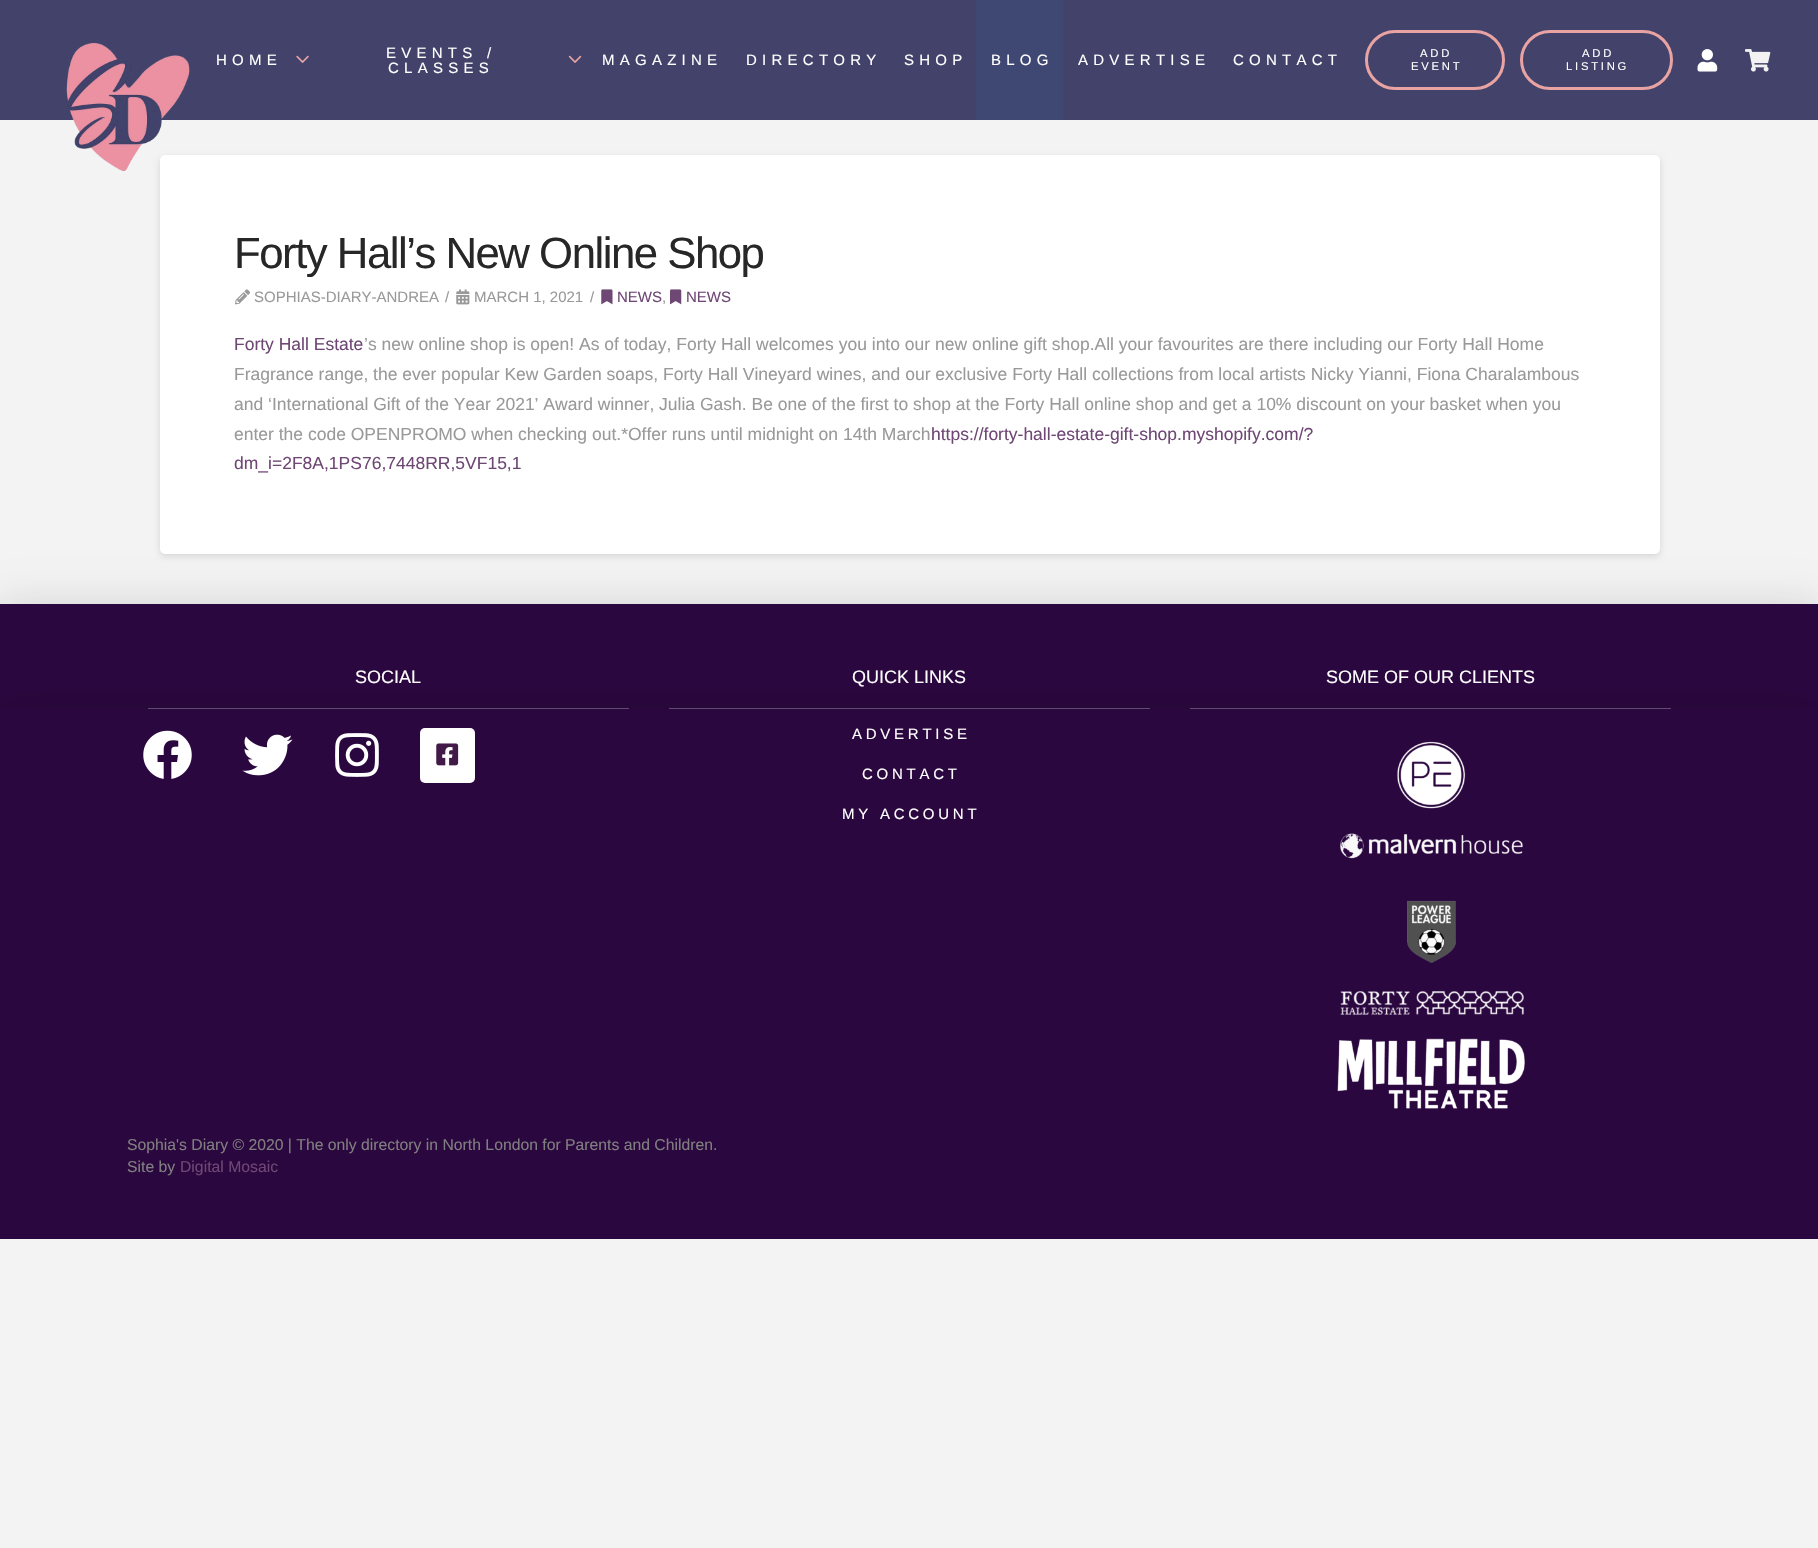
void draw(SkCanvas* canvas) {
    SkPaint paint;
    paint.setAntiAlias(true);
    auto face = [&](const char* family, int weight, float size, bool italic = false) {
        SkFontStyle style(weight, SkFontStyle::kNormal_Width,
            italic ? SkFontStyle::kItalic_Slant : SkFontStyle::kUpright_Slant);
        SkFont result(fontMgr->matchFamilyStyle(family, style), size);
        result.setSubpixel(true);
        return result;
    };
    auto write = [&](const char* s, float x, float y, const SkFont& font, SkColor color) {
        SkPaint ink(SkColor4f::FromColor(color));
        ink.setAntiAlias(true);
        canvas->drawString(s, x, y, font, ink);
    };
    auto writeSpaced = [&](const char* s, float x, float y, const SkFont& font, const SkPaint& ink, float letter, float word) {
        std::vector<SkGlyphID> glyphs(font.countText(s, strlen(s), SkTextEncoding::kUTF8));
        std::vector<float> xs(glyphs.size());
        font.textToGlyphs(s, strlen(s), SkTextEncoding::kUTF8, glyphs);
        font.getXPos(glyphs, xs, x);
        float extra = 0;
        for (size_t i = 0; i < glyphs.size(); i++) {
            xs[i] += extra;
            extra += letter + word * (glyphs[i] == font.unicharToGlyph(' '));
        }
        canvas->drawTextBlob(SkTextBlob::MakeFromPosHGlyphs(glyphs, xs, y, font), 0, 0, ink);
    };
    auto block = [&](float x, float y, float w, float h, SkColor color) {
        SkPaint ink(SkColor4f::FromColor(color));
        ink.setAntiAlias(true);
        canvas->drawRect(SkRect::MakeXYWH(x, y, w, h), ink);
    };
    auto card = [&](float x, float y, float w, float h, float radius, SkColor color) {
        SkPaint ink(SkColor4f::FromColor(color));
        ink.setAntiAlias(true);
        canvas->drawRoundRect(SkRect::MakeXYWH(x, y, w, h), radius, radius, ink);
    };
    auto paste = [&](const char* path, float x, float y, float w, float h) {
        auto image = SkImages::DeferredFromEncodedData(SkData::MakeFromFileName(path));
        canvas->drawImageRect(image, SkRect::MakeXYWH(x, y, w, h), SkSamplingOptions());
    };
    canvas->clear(SkColorSetRGB(243, 243, 243));
    block(0, 0, 1818, 120, SkColorSetRGB(66, 66, 106));
    paint.setColor(SkColorSetARGB(33, 0, 0, 0));
    paint.setMaskFilter(SkMaskFilter::MakeBlur(kNormal_SkBlurStyle, 3));
    canvas->drawRoundRect(SkRect::MakeXYWH(160, 158, 1500, 398), 5, 5, paint);
    paint.setMaskFilter(nullptr);
    card(160, 155, 1500, 399, 5, SK_ColorWHITE);
    paste("pic1.png", 66, 43, 124, 129);
    auto kFont1 = face("Liberation Sans", 400, 15);
    paint.setColor(SK_ColorWHITE);
    writeSpaced("HOME", 216, 65, kFont1, paint, 5.25f, 0);
    paste("pic2.png", 296, 55, 13, 8);
    writeSpaced("EVENTS /", 386, 58, kFont1, paint, 5.25f, 0);
    writeSpaced("CLASSES", 388, 73, kFont1, paint, 5.25f, 0);
    paste("pic3.png", 568, 55, 14, 8);
    writeSpaced("MAGAZINE", 602, 65, kFont1, paint, 5.25f, 0);
    writeSpaced("DIRECTORY", 746, 65, kFont1, paint, 5.25f, 0);
    writeSpaced("SHOP", 904, 65, kFont1, paint, 5.25f, 0);
    block(976, 0, 87, 120, SkColorSetRGB(63, 72, 114));
    writeSpaced("BLOG", 991, 65, kFont1, paint, 5.25f, 0);
    writeSpaced("ADVERTISE", 1078, 65, kFont1, paint, 5.25f, 0);
    writeSpaced("CONTACT", 1233, 65, kFont1, paint, 5.25f, 0);
    paint.setStyle(SkPaint::kStroke_Style);
    paint.setStrokeWidth(3);
    paint.setColor(SkColorSetRGB(233, 163, 163));
    canvas->drawRoundRect(SkRect::MakeXYWH(1366.5f, 31.5f, 137, 57), 28.5f, 28.5f, paint);
    auto kFont2 = face("Liberation Sans", 400, 11.25f);
    paint.setStyle(SkPaint::kFill_Style);
    paint.setColor(SK_ColorWHITE);
    writeSpaced("ADD", 1420, 57, kFont2, paint, 2.75f, 0);
    writeSpaced("EVENT", 1411, 70, kFont2, paint, 2.75f, 0);
    paint.setStyle(SkPaint::kStroke_Style);
    paint.setColor(SkColorSetRGB(233, 163, 163));
    canvas->drawRoundRect(SkRect::MakeXYWH(1521.5f, 31.5f, 150, 57), 28.5f, 28.5f, paint);
    paint.setStyle(SkPaint::kFill_Style);
    paint.setColor(SK_ColorWHITE);
    writeSpaced("ADD", 1582, 57, kFont2, paint, 2.75f, 0);
    writeSpaced("LISTING", 1566, 70, kFont2, paint, 2.75f, 0);
    paste("pic4.png", 1697, 49, 21, 23);
    paste("pic5.png", 1745, 49, 26, 23);
    auto kFont3 = face("Liberation Sans", 400, 43.75f);
    paint.setColor(SkColorSetRGB(39, 39, 39));
    writeSpaced("Forty Hall’s New Online Shop", 234, 268, kFont3, paint, -1.5f, 0);
    paste("pic6.png", 235, 289, 15, 16);
    write("SOPHIAS-DIARY-ANDREA", 254, 302, kFont1, SkColorSetRGB(153, 153, 153));
    write("/", 445, 302, kFont1, SkColorSetRGB(153, 153, 153));
    paste("pic7.png", 456, 289, 14, 16);
    write("MARCH 1, 2021", 474, 302, kFont1, SkColorSetRGB(153, 153, 153));
    write("/", 590, 302, kFont1, SkColorSetRGB(153, 153, 153));
    paste("pic8.png", 601, 289, 12, 16);
    write("NEWS", 617, 302, kFont1, SkColorSetRGB(110, 71, 116));
    write(",", 662, 302, kFont1, SkColorSetRGB(153, 153, 153));
    paste("pic9.png", 670, 289, 12, 16);
    write("NEWS", 686, 302, kFont1, SkColorSetRGB(110, 71, 116));
    auto kFont4 = face("Liberation Sans", 400, 17.5f);
    write("Forty Hall Estate", 234, 350, kFont4, SkColorSetRGB(110, 71, 116));
    write("’s new online shop is open! As of today, Forty Hall welcomes you into our new online gift shop.All your favourites are there including our Forty Hall Home", 364, 350, kFont4, SkColorSetRGB(153, 153, 153));
    write("Fragrance range, the ever popular Kew Garden soaps, Forty Hall Vineyard wines, and our exclusive Forty Hall collections from local artists Nicky Yianni, Fiona Charalambous", 234, 380, kFont4, SkColorSetRGB(153, 153, 153));
    write("and ‘International Gift of the Year 2021’ Award winner, Julia Gash. Be one of the first to shop at the Forty Hall online shop and get a 10% discount on your basket when you", 234, 410, kFont4, SkColorSetRGB(153, 153, 153));
    write("enter the code OPENPROMO when checking out.*Offer runs until midnight on 14th March", 234, 440, kFont4, SkColorSetRGB(153, 153, 153));
    write("https://forty-hall-estate-gift-shop.myshopify.com/?", 931, 440, kFont4, SkColorSetRGB(110, 71, 116));
    write("dm_i=2F8A,1PS76,7448RR,5VF15,1", 234, 469, kFont4, SkColorSetRGB(110, 71, 116));
    paint.setColor(SkColorSetARGB(38, 0, 0, 0));
    paint.setMaskFilter(SkMaskFilter::MakeBlur(kNormal_SkBlurStyle, 20));
    canvas->drawRect(SkRect::MakeXYWH(0, 606, 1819, 105), paint);
    paint.setMaskFilter(nullptr);
    block(0, 604, 1818, 105, SkColorSetRGB(43, 7, 63));
    block(148, 708, 481, 1, SkColorSetRGB(107, 81, 121));
    auto kFont5 = face("Liberation Sans", 400, 18);
    write("SOCIAL", 355, 683, kFont5, SK_ColorWHITE);
    block(669, 708, 481, 1, SkColorSetRGB(107, 81, 121));
    write("QUICK LINKS", 852, 683, kFont5, SK_ColorWHITE);
    block(1190, 708, 481, 1, SkColorSetRGB(107, 81, 121));
    write("SOME OF OUR CLIENTS", 1326, 683, kFont5, SK_ColorWHITE);
    paint.setMaskFilter(SkMaskFilter::MakeBlur(kNormal_SkBlurStyle, 20));
    canvas->drawRect(SkRect::MakeXYWH(0, 711, 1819, 407), paint);
    paint.setMaskFilter(nullptr);
    block(0, 709, 1818, 530, SkColorSetRGB(43, 7, 63));
    paste("pic10.png", 143, 730, 49, 49);
    paste("pic11.png", 242, 734, 51, 42);
    paste("pic12.png", 335, 733, 44, 44);
    card(420, 728, 55, 55, 5, SK_ColorWHITE);
    paste("pic13.png", 436, 743, 23, 23);
    paint.setColor(SK_ColorWHITE);
    writeSpaced("ADVERTISE", 852, 739, kFont1, paint, 3.75f, 0);
    writeSpaced("CONTACT", 862, 779, kFont1, paint, 3.75f, 0);
    writeSpaced("MY ACCOUNT", 842, 819, kFont1, paint, 3.75f, 0);
    paste("pic14.png", 1397, 741, 69, 68);
    paste("pic15.png", 1340, 833, 183, 26);
    paste("pic16.png", 1407, 900, 49, 63);
    paste("pic17.png", 1340, 991, 184, 24);
    paste("pic18.png", 1337, 1038, 188, 71);
    auto kFont6 = face("Liberation Sans", 400, 15.75f);
    write("Sophia's Diary © 2020 | The only directory in North London for Parents and Children.", 127, 1150, kFont6, SkColorSetRGB(128, 127, 127));
    write("Site by", 127, 1172, kFont6, SkColorSetRGB(128, 127, 127));
    write("Digital Mosaic", 180, 1172, kFont6, SkColorSetRGB(110, 71, 116));
}
